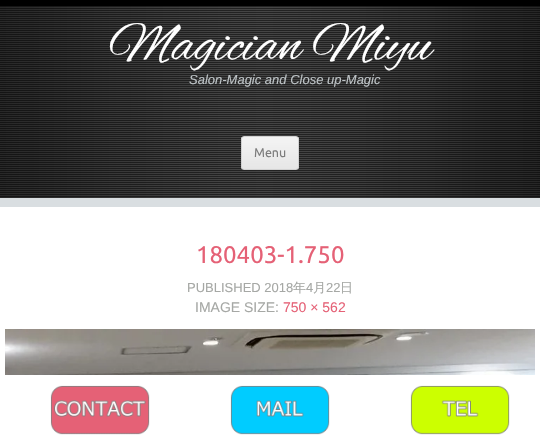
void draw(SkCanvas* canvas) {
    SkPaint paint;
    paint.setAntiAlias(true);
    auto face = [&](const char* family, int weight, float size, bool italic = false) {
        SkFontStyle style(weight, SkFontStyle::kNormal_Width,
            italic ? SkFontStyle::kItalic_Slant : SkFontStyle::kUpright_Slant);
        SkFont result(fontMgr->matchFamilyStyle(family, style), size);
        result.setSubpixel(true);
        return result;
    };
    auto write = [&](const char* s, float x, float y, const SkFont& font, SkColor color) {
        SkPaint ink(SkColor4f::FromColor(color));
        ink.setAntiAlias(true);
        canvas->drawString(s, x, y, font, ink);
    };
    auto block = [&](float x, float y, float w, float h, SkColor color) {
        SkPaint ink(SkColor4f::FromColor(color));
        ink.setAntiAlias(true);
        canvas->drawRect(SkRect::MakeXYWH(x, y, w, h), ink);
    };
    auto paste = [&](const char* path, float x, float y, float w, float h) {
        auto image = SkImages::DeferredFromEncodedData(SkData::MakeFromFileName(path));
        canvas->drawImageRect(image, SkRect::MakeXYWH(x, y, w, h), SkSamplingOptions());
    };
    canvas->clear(SK_ColorBLACK);
    block(0, 6, 540, 192, SkColorSetRGB(19, 19, 19));
    block(0, 198, 540, 9, SkColorSetRGB(217, 222, 225));
    paste("pic1.png", 0, 6, 540, 192);
    paste("pic2.png", 0, 6, 540, 191);
    auto kFont1 = face("Alex Brush", 400, 55.5f);
    write("Magician Miyu", 109, 59, kFont1, SK_ColorWHITE);
    auto kFont2 = face("Liberation Sans", 400, 13, true);
    write("Salon-Magic and Close up-Magic", 189, 84, kFont2, SkColorSetRGB(189, 195, 198));
    canvas->save();
    canvas->clipPath(SkPathBuilder().moveTo(244, 136).lineTo(296, 136).cubicTo(297.5f, 136, 299, 137.5f, 299, 139).lineTo(299, 167).cubicTo(299, 168.5f, 297.5f, 170, 296, 170).lineTo(244, 170).cubicTo(242.5f, 170, 241, 168.5f, 241, 167).lineTo(241, 139).cubicTo(241, 137.5f, 242.5f, 136, 244, 136).close().detach(), true);
    {
        const SkColor colors[] = {SkColorSetRGB(244, 244, 244), SkColorSetRGB(230, 230, 230)};
        const float stops[] = {0, 1};
        const SkPoint ends[] = {{270, 137}, {270, 169}};
        paint.setShader(SkGradientShader::MakeLinear(ends, colors, stops, 2, SkTileMode::kClamp));
        paint.setAlpha(255);
    }
    canvas->drawRect(SkRect::MakeXYWH(241, 137, 58, 32), paint);
    canvas->restore();
    paint.setStyle(SkPaint::kStroke_Style);
    paint.setStrokeWidth(1);
    paint.setShader(nullptr);
    paint.setColor(SkColorSetRGB(210, 210, 210));
    canvas->drawRoundRect(SkRect::MakeXYWH(241.5f, 136.5f, 57, 33), 2.5f, 2.5f, paint);
    auto kFont3 = face("Ubuntu", 400, 12.5f);
    write("Menu", 254, 157, kFont3, SkColorSetRGB(124, 124, 124));
    block(0, 207, 540, 238, SK_ColorWHITE);
    auto kFont4 = face("Ubuntu", 400, 24);
    write("180403-1.750", 196, 263, kFont4, SkColorSetRGB(229, 97, 118));
    auto kFont5 = face("Liberation Sans", 400, 13);
    write("PUBLISHED 2018", 187, 292, kFont5, SkColorSetRGB(166, 168, 165));
    auto kFont6 = face("WenQuanYi Zen Hei", 500, 13);
    write("年", 293, 292, kFont6, SkColorSetRGB(166, 168, 165));
    write("4", 306, 292, kFont5, SkColorSetRGB(166, 168, 165));
    write("月", 313, 292, kFont6, SkColorSetRGB(166, 168, 165));
    write("22", 326, 292, kFont5, SkColorSetRGB(166, 168, 165));
    write("日", 340, 292, kFont6, SkColorSetRGB(166, 168, 165));
    auto kFont7 = face("Liberation Sans", 400, 14);
    write("IMAGE SIZE:", 195, 312, kFont7, SkColorSetRGB(166, 168, 165));
    write("750 × 562", 283, 312, kFont7, SkColorSetRGB(229, 97, 118));
    paste("pic3.png", 5, 329, 530, 46);
    paste("pic4.png", 50, 385, 100, 50);
    paste("pic5.png", 230, 385, 100, 50);
    paste("pic6.png", 410, 385, 100, 50);
}
